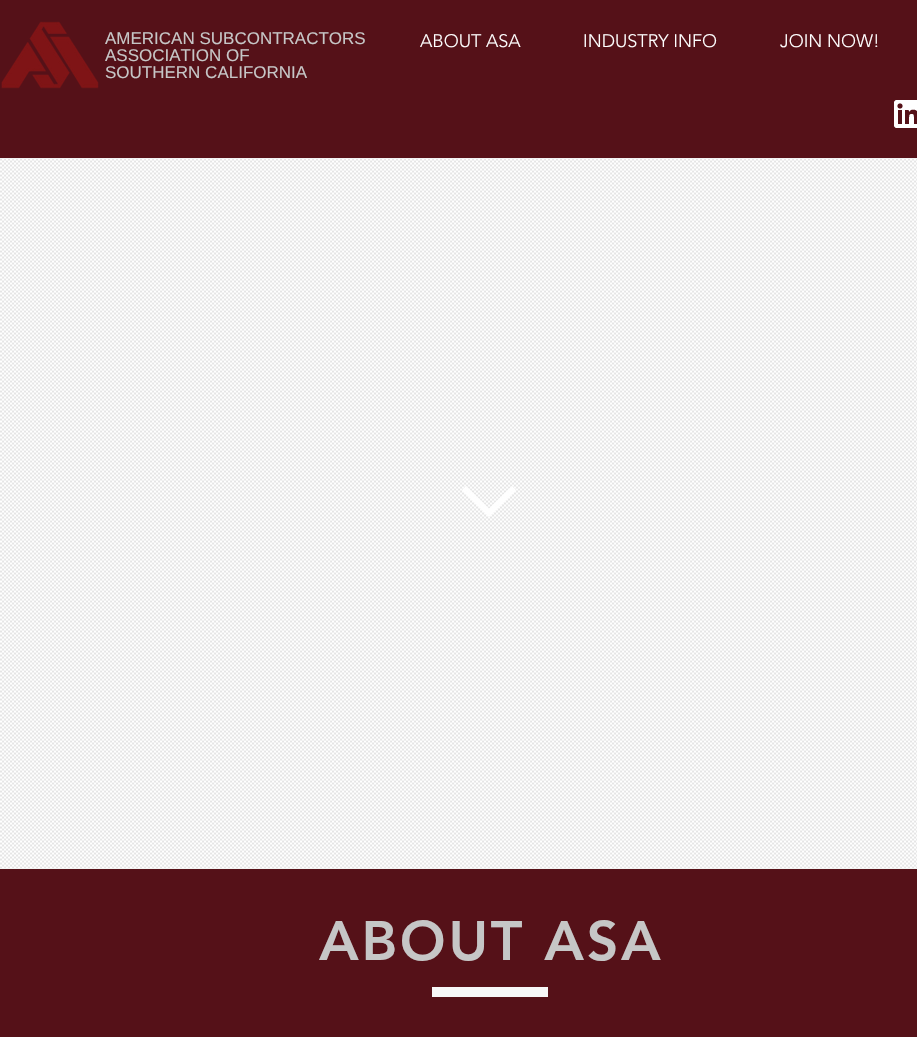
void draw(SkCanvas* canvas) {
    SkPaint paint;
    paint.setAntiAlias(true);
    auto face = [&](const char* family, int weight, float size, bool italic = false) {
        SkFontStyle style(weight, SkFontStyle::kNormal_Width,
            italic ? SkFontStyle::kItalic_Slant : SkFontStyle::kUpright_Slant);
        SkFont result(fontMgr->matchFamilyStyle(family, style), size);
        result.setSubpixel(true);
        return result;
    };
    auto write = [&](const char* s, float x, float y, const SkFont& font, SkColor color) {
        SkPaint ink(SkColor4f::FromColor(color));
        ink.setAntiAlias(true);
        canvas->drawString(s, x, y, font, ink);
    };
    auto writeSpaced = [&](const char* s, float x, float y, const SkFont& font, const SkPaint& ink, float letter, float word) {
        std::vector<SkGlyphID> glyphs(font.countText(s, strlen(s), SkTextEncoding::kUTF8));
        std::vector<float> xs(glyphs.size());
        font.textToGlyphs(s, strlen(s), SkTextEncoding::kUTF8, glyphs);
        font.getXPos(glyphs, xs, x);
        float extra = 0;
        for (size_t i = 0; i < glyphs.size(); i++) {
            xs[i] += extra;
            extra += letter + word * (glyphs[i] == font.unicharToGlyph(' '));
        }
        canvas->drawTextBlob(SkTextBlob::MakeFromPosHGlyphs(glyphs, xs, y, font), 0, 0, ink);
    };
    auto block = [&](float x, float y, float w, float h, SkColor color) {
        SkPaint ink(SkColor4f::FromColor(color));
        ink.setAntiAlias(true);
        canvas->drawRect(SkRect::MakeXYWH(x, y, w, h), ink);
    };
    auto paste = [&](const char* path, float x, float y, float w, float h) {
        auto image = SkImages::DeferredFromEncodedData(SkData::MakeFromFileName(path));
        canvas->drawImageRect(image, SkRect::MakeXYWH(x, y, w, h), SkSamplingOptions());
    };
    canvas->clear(SK_ColorWHITE);
    block(0, 0, 917, 158, SkColorSetRGB(85, 17, 24));
    paste("pic1.png", 1, 21, 98, 68);
    auto kFont1 = face("Liberation Sans", 400, 17);
    write("AMERICAN SUBCONTRACTORS", 105, 44, kFont1, SkColorSetRGB(198, 198, 198));
    write("ASSOCIATION OF", 105, 61, kFont1, SkColorSetRGB(198, 198, 198));
    write("SOUTHERN CALIFORNIA", 105, 78, kFont1, SkColorSetRGB(198, 198, 198));
    auto kFont2 = face("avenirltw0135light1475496", 300, 18);
    write("ABOUT ASA", 420, 47, kFont2, SK_ColorWHITE);
    write("INDUSTRY INFO", 583, 47, kFont2, SK_ColorWHITE);
    write("JOIN NOW!", 780, 47, kFont2, SK_ColorWHITE);
    paste("pic2.png", 894, 100, 23, 28);
    paste("pic4.png", 0, 158, 917, 711);
    paste("pic3.png", 462, 486, 54, 31);
    block(0, 869, 917, 168, SkColorSetRGB(85, 17, 24));
    auto kFont3 = face("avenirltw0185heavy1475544", 900, 55);
    paint.setColor(SkColorSetRGB(198, 198, 198));
    writeSpaced("ABOUT ASA", 319, 960, kFont3, paint, 2.75f, 0);
    block(432, 987, 116, 10, SkColorSetRGB(247, 247, 247));
}
